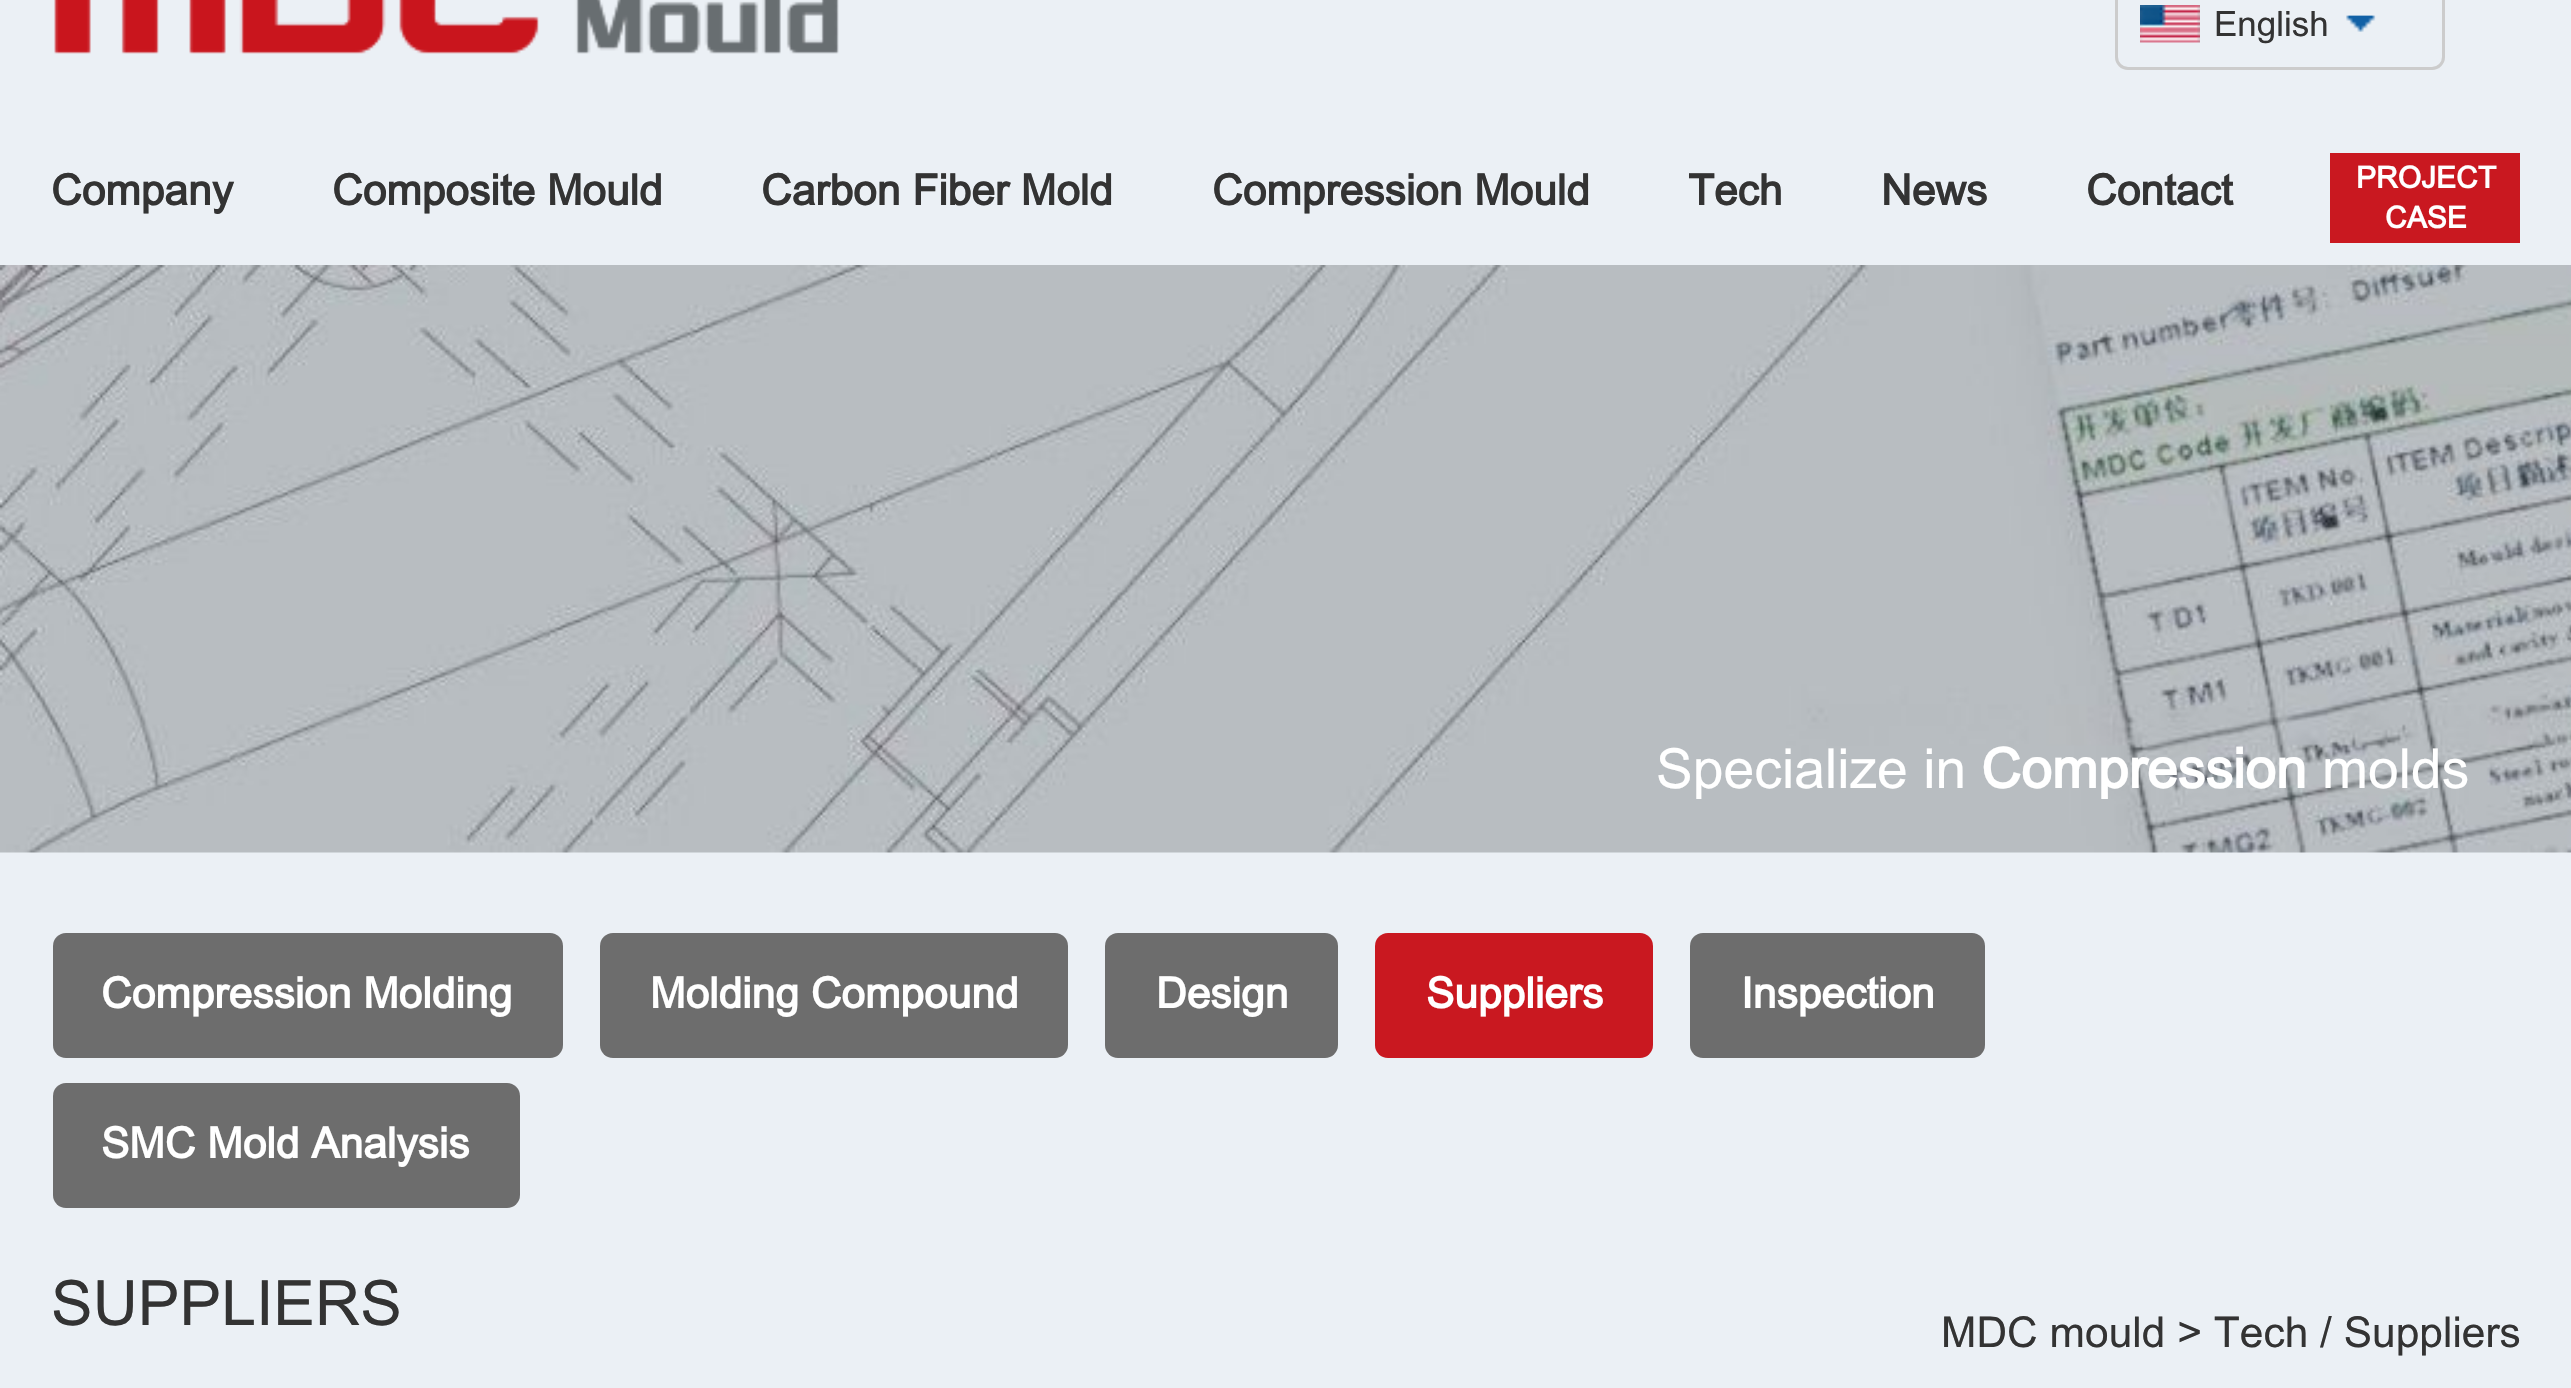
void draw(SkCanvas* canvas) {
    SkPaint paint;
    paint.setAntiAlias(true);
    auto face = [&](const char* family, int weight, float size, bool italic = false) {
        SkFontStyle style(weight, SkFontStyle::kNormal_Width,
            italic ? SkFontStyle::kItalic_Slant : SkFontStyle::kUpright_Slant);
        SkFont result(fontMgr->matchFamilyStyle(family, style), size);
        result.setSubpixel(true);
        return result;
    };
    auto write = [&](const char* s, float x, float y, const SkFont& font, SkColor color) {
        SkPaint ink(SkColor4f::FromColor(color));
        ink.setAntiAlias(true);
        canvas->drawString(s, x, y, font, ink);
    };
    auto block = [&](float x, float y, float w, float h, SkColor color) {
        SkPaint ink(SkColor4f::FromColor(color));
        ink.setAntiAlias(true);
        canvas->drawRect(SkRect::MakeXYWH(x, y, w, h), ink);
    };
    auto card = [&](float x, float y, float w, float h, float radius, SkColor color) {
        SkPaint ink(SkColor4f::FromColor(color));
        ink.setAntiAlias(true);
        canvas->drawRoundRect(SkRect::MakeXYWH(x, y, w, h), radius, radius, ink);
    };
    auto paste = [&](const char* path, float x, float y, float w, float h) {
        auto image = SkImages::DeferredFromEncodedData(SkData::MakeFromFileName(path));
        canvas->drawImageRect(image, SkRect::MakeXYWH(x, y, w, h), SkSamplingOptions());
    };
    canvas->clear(SkColorSetRGB(235, 240, 245));
    paste("pic1.png", 54, 0, 785, 54);
    paint.setStyle(SkPaint::kStroke_Style);
    paint.setStrokeWidth(3);
    paint.setColor(SkColorSetRGB(204, 204, 204));
    canvas->drawRoundRect(SkRect::MakeXYWH(2116.5f, -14.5f, 327, 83), 11.5f, 11.5f, paint);
    paste("pic2.png", 2140, 5, 60, 38);
    auto kFont1 = face("Arial", 400, 35);
    write("English", 2214, 36, kFont1, SkColorSetRGB(51, 51, 51));
    paste("pic3.png", 2346, 15, 30, 17);
    auto kFont2 = face("Arial", 700, 42.5f);
    write("Company", 51, 205, kFont2, SkColorSetRGB(51, 51, 51));
    write("Composite Mould", 332, 205, kFont2, SkColorSetRGB(51, 51, 51));
    write("Carbon Fiber Mold", 761, 205, kFont2, SkColorSetRGB(51, 51, 51));
    write("Compression Mould", 1212, 205, kFont2, SkColorSetRGB(51, 51, 51));
    write("Tech", 1688, 205, kFont2, SkColorSetRGB(51, 51, 51));
    write("News", 1881, 205, kFont2, SkColorSetRGB(51, 51, 51));
    write("Contact", 2086, 205, kFont2, SkColorSetRGB(51, 51, 51));
    block(2330, 153, 190, 90, SkColorSetRGB(201, 24, 32));
    auto kFont3 = face("Arial", 700, 30);
    write("PROJECT", 2356, 188, kFont3, SK_ColorWHITE);
    write("CASE", 2385, 228, kFont3, SK_ColorWHITE);
    paste("pic4.png", 0, 265, 2571, 588);
    auto kFont4 = face("Arial", 400, 55.25f);
    write("Specialize in", 1656, 788, kFont4, SK_ColorWHITE);
    auto kFont5 = face("Arial", 700, 55.25f);
    write("Compression", 1981, 788, kFont5, SK_ColorWHITE);
    write("molds", 2322, 788, kFont4, SK_ColorWHITE);
    card(53, 933, 510, 125, 13, SkColorSetRGB(109, 109, 109));
    write("Compression Molding", 101, 1008, kFont2, SK_ColorWHITE);
    card(600, 933, 468, 125, 13, SkColorSetRGB(109, 109, 109));
    write("Molding Compound", 650, 1008, kFont2, SK_ColorWHITE);
    card(1105, 933, 233, 125, 13, SkColorSetRGB(109, 109, 109));
    write("Design", 1156, 1008, kFont2, SK_ColorWHITE);
    card(1375, 933, 278, 125, 13, SkColorSetRGB(201, 24, 32));
    write("Suppliers", 1426, 1008, kFont2, SK_ColorWHITE);
    card(1690, 933, 295, 125, 13, SkColorSetRGB(109, 109, 109));
    write("Inspection", 1741, 1008, kFont2, SK_ColorWHITE);
    card(53, 1083, 467, 125, 13, SkColorSetRGB(109, 109, 109));
    write("SMC Mold Analysis", 101, 1158, kFont2, SK_ColorWHITE);
    auto kFont6 = face("Arial", 400, 62.5f);
    write("SUPPLIERS", 51, 1325, kFont6, SkColorSetRGB(51, 51, 51));
    auto kFont7 = face("Arial", 400, 42.5f);
    write("MDC mould > Tech / Suppliers", 1941, 1347, kFont7, SkColorSetRGB(51, 51, 51));
}
